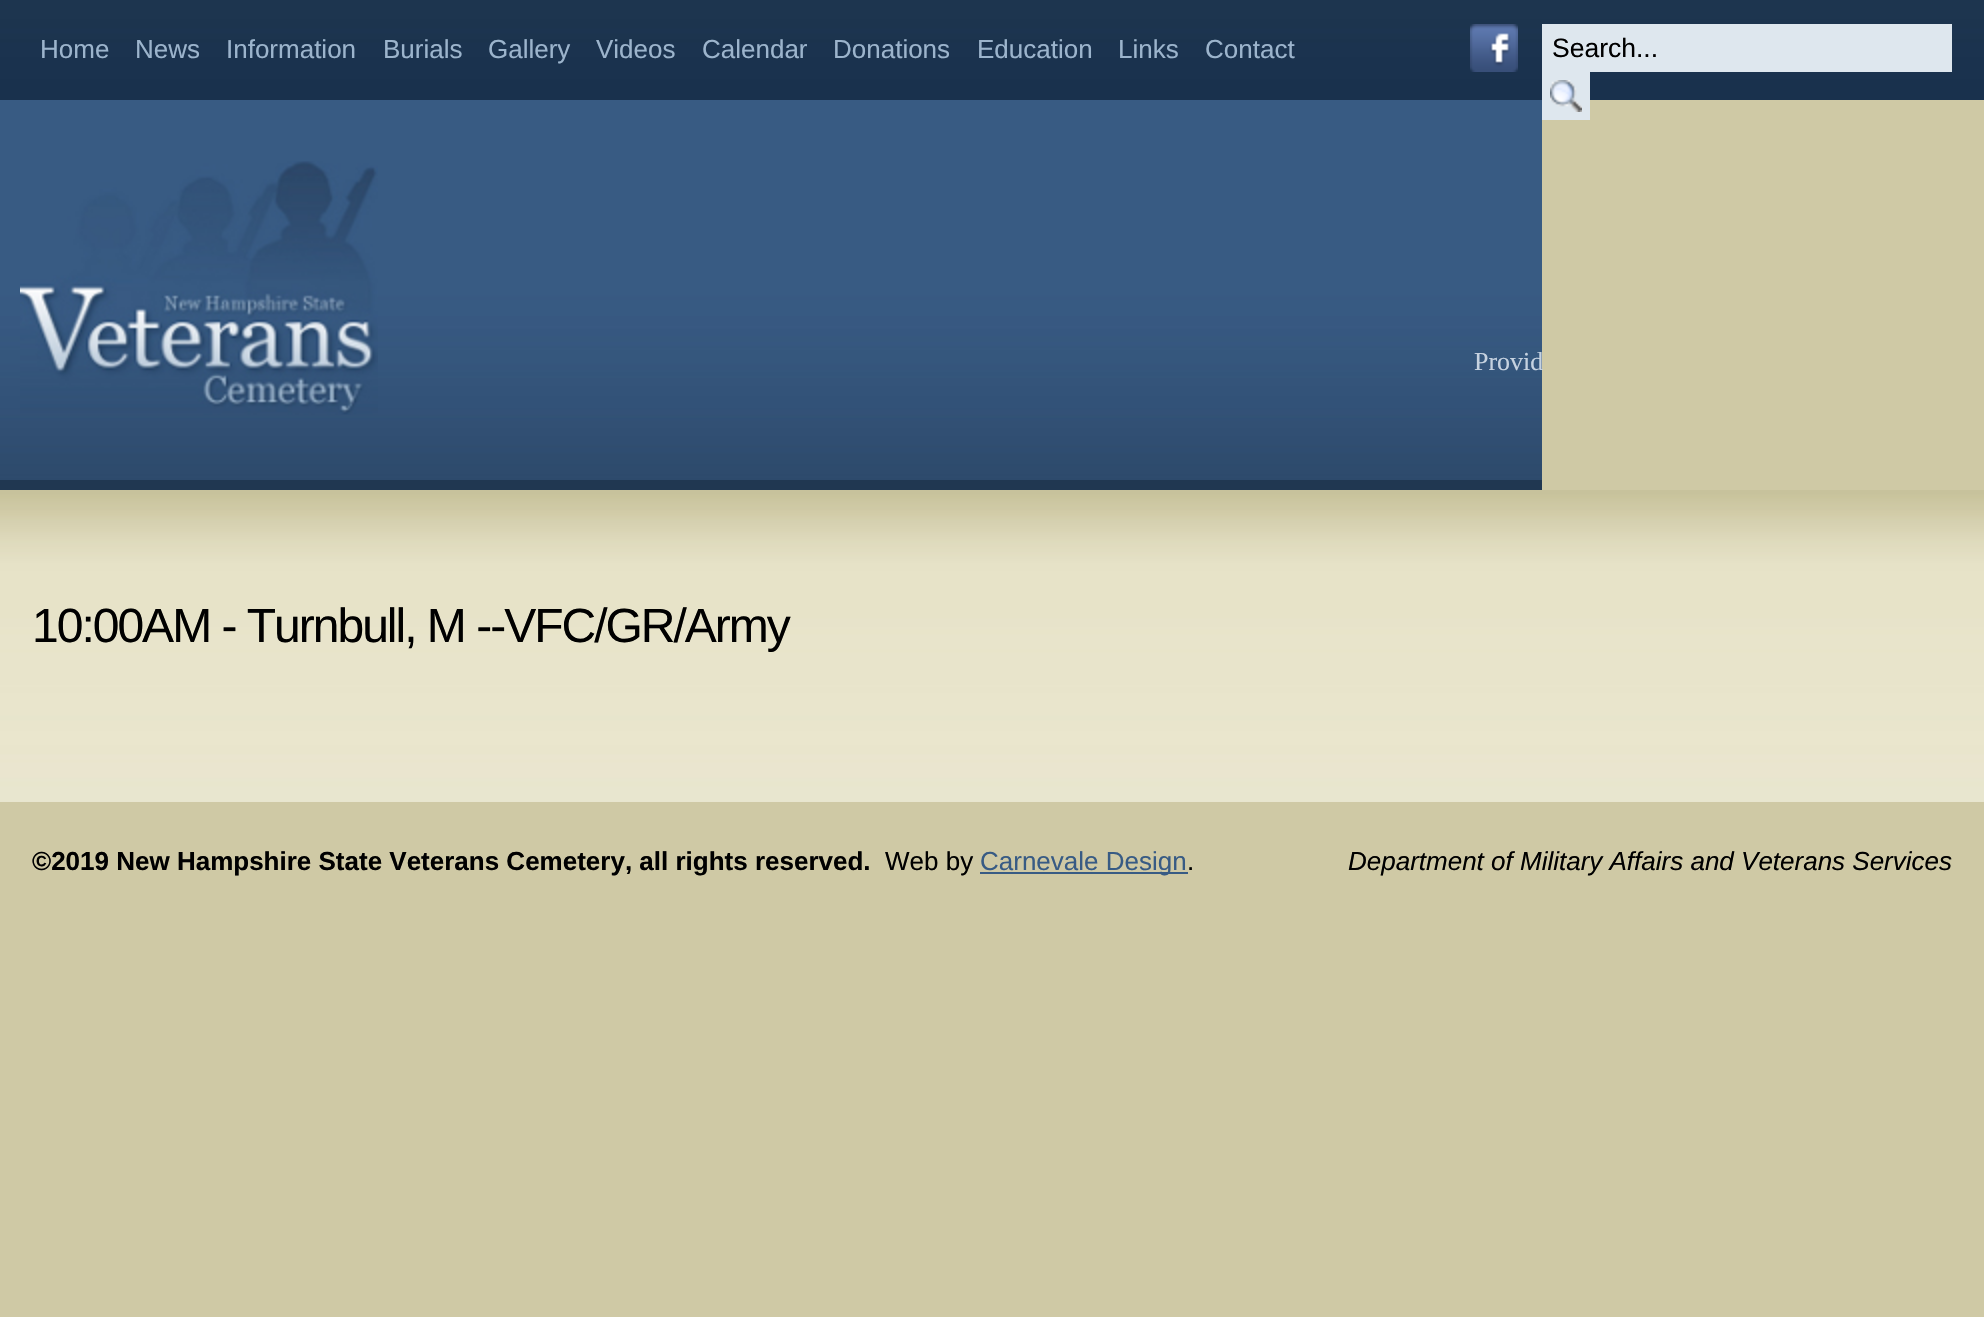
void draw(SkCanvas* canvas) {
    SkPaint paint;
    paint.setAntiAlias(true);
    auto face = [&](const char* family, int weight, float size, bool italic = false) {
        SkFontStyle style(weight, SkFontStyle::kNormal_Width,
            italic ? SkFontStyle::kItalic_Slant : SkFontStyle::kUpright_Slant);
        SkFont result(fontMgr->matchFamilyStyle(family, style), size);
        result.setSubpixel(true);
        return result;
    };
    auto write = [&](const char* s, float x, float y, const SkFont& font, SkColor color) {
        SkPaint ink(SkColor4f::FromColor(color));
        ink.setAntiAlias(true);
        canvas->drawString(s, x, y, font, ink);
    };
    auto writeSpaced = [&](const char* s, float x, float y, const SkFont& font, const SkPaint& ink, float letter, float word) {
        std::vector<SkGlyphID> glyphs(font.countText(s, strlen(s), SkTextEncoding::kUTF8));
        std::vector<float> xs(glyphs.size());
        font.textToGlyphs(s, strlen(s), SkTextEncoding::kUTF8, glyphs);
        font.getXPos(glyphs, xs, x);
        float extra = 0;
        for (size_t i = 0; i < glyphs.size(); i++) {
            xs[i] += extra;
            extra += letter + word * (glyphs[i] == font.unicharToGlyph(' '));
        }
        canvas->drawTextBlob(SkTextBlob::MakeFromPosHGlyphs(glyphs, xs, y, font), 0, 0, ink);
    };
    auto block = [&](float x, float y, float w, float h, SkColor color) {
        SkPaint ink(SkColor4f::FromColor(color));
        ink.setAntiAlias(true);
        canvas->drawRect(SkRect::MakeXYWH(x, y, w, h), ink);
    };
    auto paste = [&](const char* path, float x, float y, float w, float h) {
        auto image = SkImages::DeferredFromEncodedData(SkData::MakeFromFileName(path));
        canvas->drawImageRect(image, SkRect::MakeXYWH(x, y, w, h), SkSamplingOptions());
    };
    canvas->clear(SkColorSetRGB(207, 201, 165));
    paste("pic1.png", 0, 0, 1984, 100);
    auto kFont1 = face("Liberation Sans", 400, 26);
    write("Home", 40, 58, kFont1, SkColorSetRGB(156, 180, 204));
    write("News", 135, 58, kFont1, SkColorSetRGB(156, 180, 204));
    write("Information", 226, 58, kFont1, SkColorSetRGB(156, 180, 204));
    write("Burials", 383, 58, kFont1, SkColorSetRGB(156, 180, 204));
    write("Gallery", 488, 58, kFont1, SkColorSetRGB(156, 180, 204));
    write("Videos", 596, 58, kFont1, SkColorSetRGB(156, 180, 204));
    write("Calendar", 702, 58, kFont1, SkColorSetRGB(156, 180, 204));
    write("Donations", 833, 58, kFont1, SkColorSetRGB(156, 180, 204));
    write("Education", 977, 58, kFont1, SkColorSetRGB(156, 180, 204));
    write("Links", 1118, 58, kFont1, SkColorSetRGB(156, 180, 204));
    write("Contact", 1205, 58, kFont1, SkColorSetRGB(156, 180, 204));
    paste("pic2.png", 1470, 24, 48, 48);
    block(1542, 24, 410, 48, SkColorSetRGB(222, 231, 238));
    auto kFont2 = face("Liberation Sans", 400, 26.5f);
    write("Search...", 1552, 57, kFont2, SK_ColorBLACK);
    block(1542, 72, 48, 48, SkColorSetRGB(222, 231, 238));
    paste("pic3.png", 1550, 80, 32, 32);
    paste("pic4.png", 0, 100, 1542, 380);
    block(0, 480, 1542, 10, SkColorSetRGB(32, 55, 81));
    paste("pic5.png", 20, 161, 358, 254);
    auto kFont3 = face("Liberation Serif", 400, 26);
    write("Provid", 1474, 370, kFont3, SkColorSetRGB(198, 210, 224));
    paste("pic6.png", 0, 490, 1984, 312);
    auto kFont4 = face("Liberation Sans", 400, 48);
    paint.setColor(SK_ColorBLACK);
    writeSpaced("10:00AM - Turnbull, M --VFC/GR/Army", 32, 642, kFont4, paint, -2, 0);
    auto kFont5 = face("Liberation Sans", 700, 26);
    write("©2019 New Hampshire State Veterans Cemetery, all rights reserved.", 32, 870, kFont5, SK_ColorBLACK);
    write("Web by", 885, 870, kFont1, SK_ColorBLACK);
    block(980, 872, 208, 2, SkColorSetRGB(56, 91, 132));
    write("Carnevale Design", 980, 870, kFont1, SkColorSetRGB(56, 91, 132));
    write(".", 1187, 870, kFont1, SK_ColorBLACK);
    auto kFont6 = face("Liberation Sans", 400, 26, true);
    write("Department of Military Affairs and Veterans Services", 1348, 870, kFont6, SK_ColorBLACK);
}
